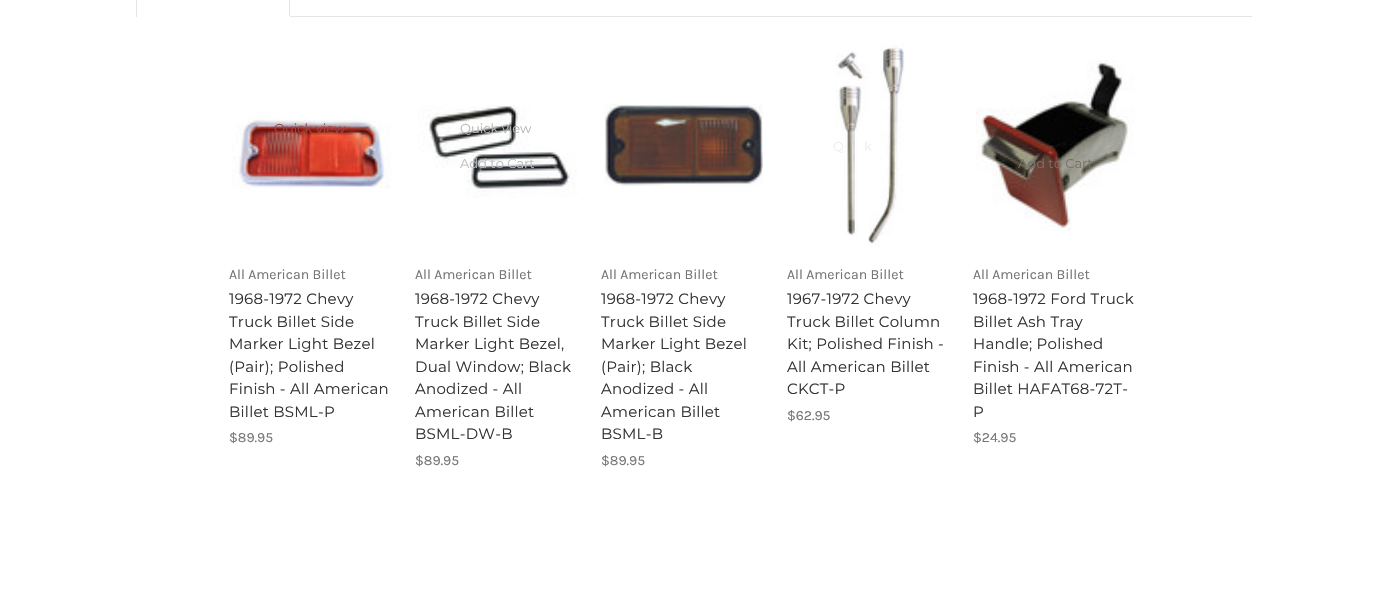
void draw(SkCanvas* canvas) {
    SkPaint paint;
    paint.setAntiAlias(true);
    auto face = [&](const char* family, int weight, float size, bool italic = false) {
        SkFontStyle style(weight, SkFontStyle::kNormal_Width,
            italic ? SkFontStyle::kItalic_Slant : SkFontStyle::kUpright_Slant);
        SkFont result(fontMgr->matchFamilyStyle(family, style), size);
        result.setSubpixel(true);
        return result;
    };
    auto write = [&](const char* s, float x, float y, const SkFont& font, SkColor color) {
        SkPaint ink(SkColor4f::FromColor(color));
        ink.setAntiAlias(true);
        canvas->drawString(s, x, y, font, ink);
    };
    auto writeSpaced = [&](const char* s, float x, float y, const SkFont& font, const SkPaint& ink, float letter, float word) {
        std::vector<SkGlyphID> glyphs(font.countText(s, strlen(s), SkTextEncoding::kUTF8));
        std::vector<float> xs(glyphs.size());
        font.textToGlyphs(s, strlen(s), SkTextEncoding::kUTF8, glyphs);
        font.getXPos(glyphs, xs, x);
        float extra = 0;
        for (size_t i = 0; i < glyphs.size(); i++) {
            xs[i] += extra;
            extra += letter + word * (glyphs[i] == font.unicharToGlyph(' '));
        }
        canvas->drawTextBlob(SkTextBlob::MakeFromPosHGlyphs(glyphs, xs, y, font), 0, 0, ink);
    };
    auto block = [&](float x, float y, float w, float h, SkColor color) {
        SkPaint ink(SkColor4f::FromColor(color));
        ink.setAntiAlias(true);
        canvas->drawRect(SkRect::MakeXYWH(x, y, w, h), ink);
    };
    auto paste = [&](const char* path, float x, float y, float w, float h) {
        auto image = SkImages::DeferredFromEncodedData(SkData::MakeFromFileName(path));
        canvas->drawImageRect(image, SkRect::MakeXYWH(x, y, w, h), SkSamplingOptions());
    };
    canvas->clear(SK_ColorWHITE);
    block(290, 16, 962, 1, SkColorSetRGB(229, 229, 229));
    block(289, 0, 1, 17, SkColorSetRGB(229, 229, 229));
    block(289, 16, 1, 1, SK_ColorWHITE);
    block(136, 0, 1, 17, SkColorSetRGB(229, 229, 229));
    paste("pic1.png", 232, 117, 159, 72);
    auto kFont1 = face("Montserrat", 400, 13);
    write("Quick view", 274, 133, kFont1, SkColorSetRGB(155, 71, 68));
    auto kFont2 = face("Karla", 400, 14);
    write("All American Billet", 229, 279, kFont2, SkColorSetRGB(117, 117, 117));
    auto kFont3 = face("Montserrat", 400, 15);
    paint.setColor(SkColorSetRGB(51, 51, 51));
    writeSpaced("1968-1972 Chevy", 229, 304, kFont3, paint, 0.25f, 0);
    writeSpaced("Truck Billet Side", 229, 327, kFont3, paint, 0.25f, 0);
    writeSpaced("Marker Light Bezel", 229, 349, kFont3, paint, 0.25f, 0);
    writeSpaced("(Pair); Polished", 229, 372, kFont3, paint, 0.25f, 0);
    writeSpaced("Finish - All American", 229, 394, kFont3, paint, 0.25f, 0);
    writeSpaced("Billet BSML-P", 229, 417, kFont3, paint, 0.25f, 0);
    write("$89.95", 229, 442, kFont2, SkColorSetRGB(117, 117, 117));
    paste("pic2.png", 418, 105, 159, 93);
    write("Quick view", 460, 133, kFont1, SkColorSetRGB(182, 183, 183));
    write("Add to Cart", 460, 168, kFont1, SkColorSetRGB(191, 192, 193));
    write("All American Billet", 415, 279, kFont2, SkColorSetRGB(117, 117, 117));
    writeSpaced("1968-1972 Chevy", 415, 304, kFont3, paint, 0.25f, 0);
    writeSpaced("Truck Billet Side", 415, 327, kFont3, paint, 0.25f, 0);
    writeSpaced("Marker Light Bezel,", 415, 349, kFont3, paint, 0.25f, 0);
    writeSpaced("Dual Window; Black", 415, 372, kFont3, paint, 0.25f, 0);
    writeSpaced("Anodized - All", 415, 394, kFont3, paint, 0.25f, 0);
    writeSpaced("American Billet", 415, 417, kFont3, paint, 0.25f, 0);
    writeSpaced("BSML-DW-B", 415, 439, kFont3, paint, 0.25f, 0);
    write("$89.95", 415, 465, kFont2, SkColorSetRGB(117, 117, 117));
    paste("pic3.png", 604, 104, 159, 82);
    write("All American Billet", 601, 279, kFont2, SkColorSetRGB(117, 117, 117));
    writeSpaced("1968-1972 Chevy", 601, 304, kFont3, paint, 0.25f, 0);
    writeSpaced("Truck Billet Side", 601, 327, kFont3, paint, 0.25f, 0);
    writeSpaced("Marker Light Bezel", 601, 349, kFont3, paint, 0.25f, 0);
    writeSpaced("(Pair); Black", 601, 372, kFont3, paint, 0.25f, 0);
    writeSpaced("Anodized - All", 601, 394, kFont3, paint, 0.25f, 0);
    writeSpaced("American Billet", 601, 417, kFont3, paint, 0.25f, 0);
    writeSpaced("BSML-B", 601, 439, kFont3, paint, 0.25f, 0);
    write("$89.95", 601, 465, kFont2, SkColorSetRGB(117, 117, 117));
    paste("pic4.png", 835, 43, 70, 204);
    write("Q", 833, 151, kFont1, SkColorSetRGB(239, 239, 237));
    write("k", 864, 151, kFont1, SkColorSetRGB(239, 239, 237));
    write("All American Billet", 787, 279, kFont2, SkColorSetRGB(117, 117, 117));
    writeSpaced("1967-1972 Chevy", 787, 304, kFont3, paint, 0.25f, 0);
    writeSpaced("Truck Billet Column", 787, 327, kFont3, paint, 0.25f, 0);
    writeSpaced("Kit; Polished Finish -", 787, 349, kFont3, paint, 0.25f, 0);
    writeSpaced("All American Billet", 787, 372, kFont3, paint, 0.25f, 0);
    writeSpaced("CKCT-P", 787, 394, kFont3, paint, 0.25f, 0);
    write("$62.95", 787, 420, kFont2, SkColorSetRGB(117, 117, 117));
    paste("pic5.png", 976, 60, 159, 171);
    write("Add to Cart", 1018, 168, kFont1, SkColorSetRGB(123, 111, 99));
    write("All American Billet", 973, 279, kFont2, SkColorSetRGB(117, 117, 117));
    writeSpaced("1968-1972 Ford Truck", 973, 304, kFont3, paint, 0.25f, 0);
    writeSpaced("Billet Ash Tray", 973, 327, kFont3, paint, 0.25f, 0);
    writeSpaced("Handle; Polished", 973, 349, kFont3, paint, 0.25f, 0);
    writeSpaced("Finish - All American", 973, 372, kFont3, paint, 0.25f, 0);
    writeSpaced("Billet HAFAT68-72T-", 973, 394, kFont3, paint, 0.25f, 0);
    writeSpaced("P", 973, 417, kFont3, paint, 0.25f, 0);
    write("$24.95", 973, 442, kFont2, SkColorSetRGB(117, 117, 117));
}
